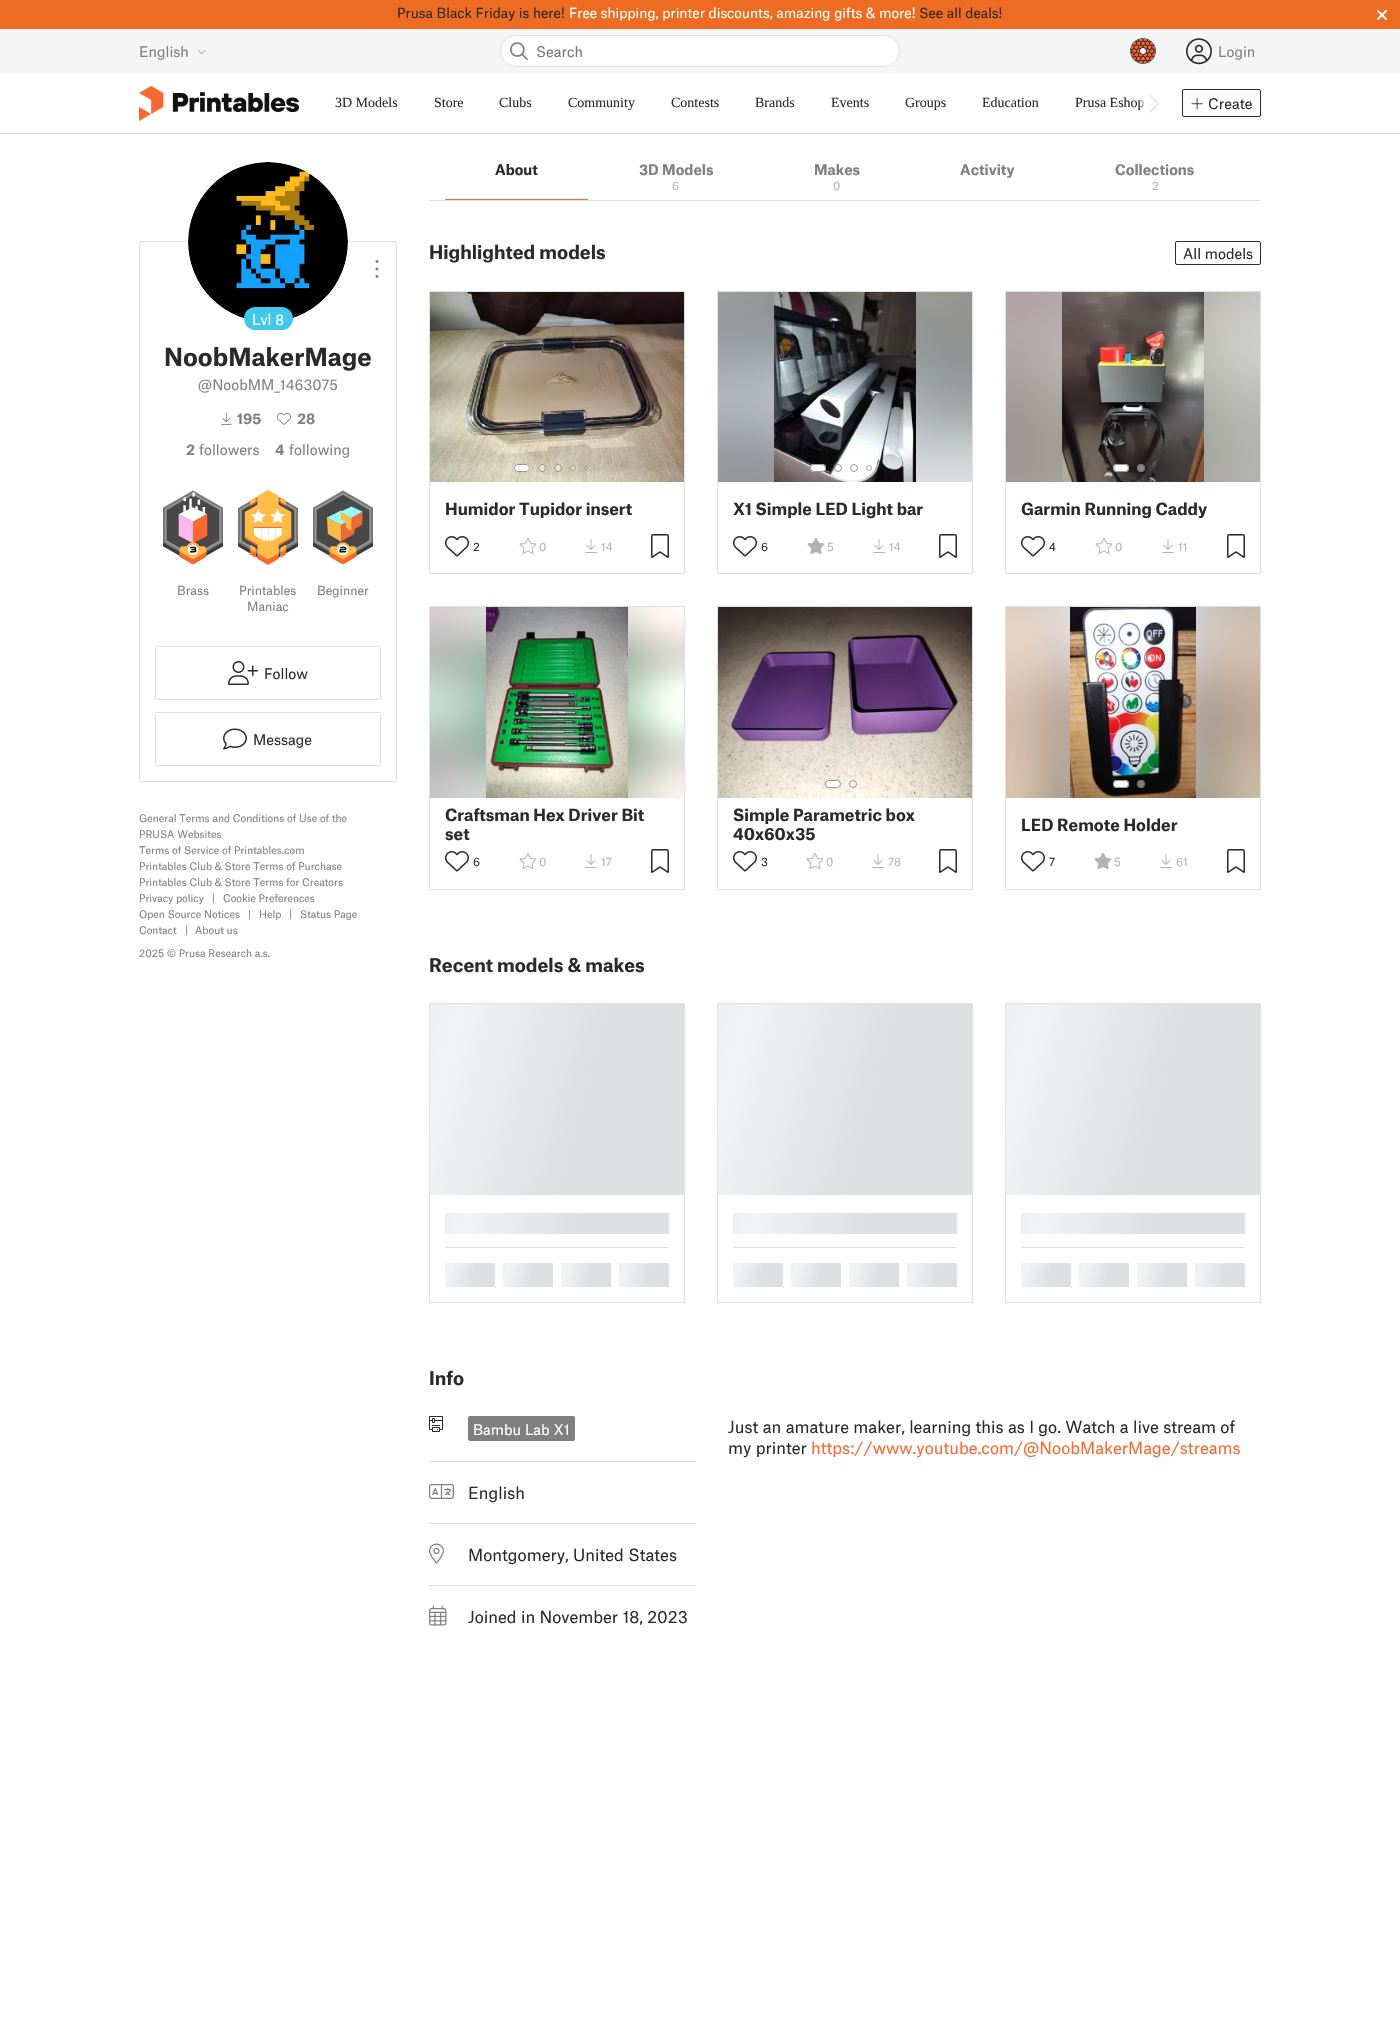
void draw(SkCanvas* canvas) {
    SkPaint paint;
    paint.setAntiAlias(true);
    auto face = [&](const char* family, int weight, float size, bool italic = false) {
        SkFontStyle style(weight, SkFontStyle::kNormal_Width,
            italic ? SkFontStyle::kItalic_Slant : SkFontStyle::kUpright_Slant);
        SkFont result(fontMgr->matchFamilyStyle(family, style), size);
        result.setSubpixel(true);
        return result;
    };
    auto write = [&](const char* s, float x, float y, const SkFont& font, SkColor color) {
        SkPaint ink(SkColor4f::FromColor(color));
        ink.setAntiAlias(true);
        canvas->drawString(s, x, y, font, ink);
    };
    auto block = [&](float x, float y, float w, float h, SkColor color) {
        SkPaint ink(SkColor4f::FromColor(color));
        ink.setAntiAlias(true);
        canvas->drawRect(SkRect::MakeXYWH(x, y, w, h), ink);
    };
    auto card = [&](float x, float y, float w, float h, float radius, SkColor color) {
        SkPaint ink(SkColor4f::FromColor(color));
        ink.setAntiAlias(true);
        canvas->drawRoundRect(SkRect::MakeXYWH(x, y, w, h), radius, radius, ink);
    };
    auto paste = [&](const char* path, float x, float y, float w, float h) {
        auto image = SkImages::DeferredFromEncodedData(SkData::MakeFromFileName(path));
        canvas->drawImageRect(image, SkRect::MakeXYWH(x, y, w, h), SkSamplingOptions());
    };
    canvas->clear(SK_ColorWHITE);
    block(0, 0, 1400, 29, SkColorSetRGB(237, 108, 33));
    auto kFont1 = face("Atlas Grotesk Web", 400, 13.35f);
    write("Prusa Black Friday is here!", 397, 18, kFont1, SkColorSetRGB(42, 42, 42));
    write("Free shipping, printer discounts, amazing gifts & more!", 569, 18, kFont1, SK_ColorWHITE);
    write("See all deals!", 919, 18, kFont1, SkColorSetRGB(42, 42, 42));
    paste("pic1.png", 1377, 10, 10, 10);
    block(0, 29, 1400, 44, SkColorSetRGB(245, 245, 245));
    auto kFont2 = face("Atlas Grotesk Web", 400, 14);
    write("English", 139, 57, kFont2, SkColorSetRGB(128, 128, 128));
    paste("pic2.png", 198, 50, 8, 4);
    paint.setColor(SK_ColorWHITE);
    canvas->drawRoundRect(SkRect::MakeXYWH(500.5f, 35.5f, 399, 31), 15.5f, 15.5f, paint);
    paint.setStyle(SkPaint::kStroke_Style);
    paint.setStrokeWidth(1);
    paint.setColor(SkColorSetRGB(224, 224, 224));
    canvas->drawRoundRect(SkRect::MakeXYWH(500.5f, 35.5f, 399, 31), 15.5f, 15.5f, paint);
    paste("pic3.png", 510, 42, 18, 19);
    write("Search", 536, 57, kFont2, SkColorSetRGB(117, 117, 117));
    paste("pic4.png", 1130, 38, 26, 26);
    paste("pic5.png", 1186, 38, 26, 27);
    write("Login", 1218, 57, kFont2, SkColorSetRGB(128, 128, 128));
    block(0, 133, 1400, 1, SkColorSetRGB(224, 224, 224));
    paste("pic6.png", 139, 86, 160, 35);
    auto kFont3 = face("Liberation Serif", 400, 14);
    write("3D Models", 335, 107, kFont3, SkColorSetRGB(42, 42, 42));
    write("Store", 434, 107, kFont3, SkColorSetRGB(42, 42, 42));
    write("Clubs", 499, 107, kFont3, SkColorSetRGB(42, 42, 42));
    write("Community", 568, 107, kFont3, SkColorSetRGB(42, 42, 42));
    write("Contests", 671, 107, kFont3, SkColorSetRGB(42, 42, 42));
    write("Brands", 755, 107, kFont3, SkColorSetRGB(42, 42, 42));
    write("Events", 831, 107, kFont3, SkColorSetRGB(42, 42, 42));
    write("Groups", 905, 107, kFont3, SkColorSetRGB(42, 42, 42));
    write("Education", 982, 107, kFont3, SkColorSetRGB(42, 42, 42));
    write("Prusa Eshop", 1075, 107, kFont3, SkColorSetRGB(42, 42, 42));
    paint.setStyle(SkPaint::kFill_Style);
    {
        const SkColor colors[] = {SkColorSetARGB(0, 255, 255, 255), SK_ColorWHITE, SK_ColorWHITE};
        const float stops[] = {0, 0.2f, 1};
        const SkPoint ends[] = {{1140, 103}, {1165, 103}};
        paint.setShader(SkGradientShader::MakeLinear(ends, colors, stops, 3, SkTileMode::kClamp));
        paint.setAlpha(255);
    }
    canvas->drawRect(SkRect::MakeXYWH(1140, 100, 4, 10), paint);
    paste("pic7.png", 1149, 95, 10, 18);
    paint.setStyle(SkPaint::kStroke_Style);
    paint.setShader(nullptr);
    paint.setColor(SkColorSetRGB(42, 42, 42));
    canvas->drawRoundRect(SkRect::MakeXYWH(1182.5f, 89.5f, 78, 27), 1.5f, 1.5f, paint);
    paste("pic8.png", 1191, 98, 12, 12);
    write("Create", 1208, 109, kFont2, SkColorSetRGB(42, 42, 42));
    paint.setColor(SkColorSetRGB(224, 224, 224));
    canvas->drawRoundRect(SkRect::MakeXYWH(139.5f, 241.5f, 257, 540), 1.5f, 1.5f, paint);
    paste("pic9.png", 375, 260, 4, 18);
    paste("pic10.png", 188, 162, 160, 157);
    paint.setStrokeWidth(2);
    paint.setColor(SK_ColorWHITE);
    canvas->drawCircle(268, 242, 81, paint);
    card(244, 307, 49, 23, 11.5f, SkColorSetRGB(64, 200, 232));
    write("Lvl 8", 252, 325, kFont2, SK_ColorWHITE);
    auto kFont4 = face("Atlas Grotesk Web", 700, 24);
    write("NoobMakerMage", 164, 366, kFont4, SkColorSetRGB(42, 42, 42));
    write("@NoobMM_1463075", 198, 390, kFont2, SkColorSetRGB(128, 128, 128));
    paste("pic11.png", 221, 412, 11, 13);
    auto kFont5 = face("Atlas Grotesk Web", 700, 14);
    write("195", 237, 424, kFont5, SkColorSetRGB(128, 128, 128));
    paste("pic12.png", 277, 412, 14, 13);
    write("28", 297, 424, kFont5, SkColorSetRGB(128, 128, 128));
    write("2", 186, 455, kFont5, SkColorSetRGB(128, 128, 128));
    write("followers", 199, 455, kFont2, SkColorSetRGB(128, 128, 128));
    write("4", 275, 455, kFont5, SkColorSetRGB(128, 128, 128));
    write("following", 289, 455, kFont2, SkColorSetRGB(128, 128, 128));
    paste("pic13.png", 163, 490, 60, 75);
    auto kFont6 = face("Atlas Grotesk Web", 400, 12);
    write("Brass", 177, 595, kFont6, SkColorSetRGB(128, 128, 128));
    paste("pic14.png", 238, 490, 60, 75);
    write("Printables", 239, 595, kFont6, SkColorSetRGB(128, 128, 128));
    write("Maniac", 247, 611, kFont6, SkColorSetRGB(128, 128, 128));
    paste("pic15.png", 313, 490, 60, 75);
    write("Beginner", 317, 595, kFont6, SkColorSetRGB(128, 128, 128));
    paint.setStrokeWidth(1);
    paint.setColor(SkColorSetRGB(224, 224, 224));
    canvas->drawRoundRect(SkRect::MakeXYWH(155.5f, 646.5f, 225, 53), 1.5f, 1.5f, paint);
    paste("pic16.png", 228, 661, 30, 24);
    write("Follow", 264, 679, kFont2, SkColorSetRGB(42, 42, 42));
    canvas->drawRoundRect(SkRect::MakeXYWH(155.5f, 712.5f, 225, 53), 1.5f, 1.5f, paint);
    paste("pic17.png", 223, 728, 24, 22);
    write("Message", 253, 745, kFont2, SkColorSetRGB(42, 42, 42));
    auto kFont7 = face("Atlas Grotesk Web", 400, 10);
    write("General Terms and Conditions of Use of the", 139, 822, kFont7, SkColorSetRGB(128, 128, 128));
    write("PRUSA Websites", 139, 838, kFont7, SkColorSetRGB(128, 128, 128));
    write("Terms of Service of Printables.com", 139, 854, kFont7, SkColorSetRGB(128, 128, 128));
    write("Printables Club & Store Terms of Purchase", 139, 870, kFont7, SkColorSetRGB(128, 128, 128));
    write("Printables Club & Store Terms for Creators", 139, 886, kFont7, SkColorSetRGB(128, 128, 128));
    write("Privacy policy", 139, 902, kFont7, SkColorSetRGB(128, 128, 128));
    write("|", 212, 902, kFont7, SkColorSetRGB(128, 128, 128));
    write("Cookie Preferences", 223, 902, kFont7, SkColorSetRGB(128, 128, 128));
    write("Open Source Notices", 139, 918, kFont7, SkColorSetRGB(128, 128, 128));
    write("|", 248, 918, kFont7, SkColorSetRGB(128, 128, 128));
    write("Help", 259, 918, kFont7, SkColorSetRGB(128, 128, 128));
    write("|", 289, 918, kFont7, SkColorSetRGB(128, 128, 128));
    write("Status Page", 300, 918, kFont7, SkColorSetRGB(128, 128, 128));
    write("Contact", 139, 934, kFont7, SkColorSetRGB(128, 128, 128));
    write("|", 185, 934, kFont7, SkColorSetRGB(128, 128, 128));
    write("About us", 195, 934, kFont7, SkColorSetRGB(128, 128, 128));
    write("2025 © Prusa Research a.s.", 139, 957, kFont7, SkColorSetRGB(128, 128, 128));
    block(429, 200, 832, 1, SkColorSetRGB(224, 224, 224));
    block(445, 199, 143, 1, SkColorSetRGB(250, 104, 49));
    write("About", 495, 175, kFont5, SkColorSetRGB(42, 42, 42));
    write("3D Models", 639, 175, kFont5, SkColorSetRGB(128, 128, 128));
    auto kFont8 = face("Atlas Grotesk Web", 400, 11);
    write("6", 672, 190, kFont8, SkColorSetRGB(179, 179, 179));
    write("Makes", 814, 175, kFont5, SkColorSetRGB(128, 128, 128));
    write("0", 833, 190, kFont8, SkColorSetRGB(179, 179, 179));
    write("Activity", 960, 175, kFont5, SkColorSetRGB(128, 128, 128));
    write("Collections", 1115, 175, kFont5, SkColorSetRGB(128, 128, 128));
    write("2", 1152, 190, kFont8, SkColorSetRGB(179, 179, 179));
    auto kFont9 = face("Atlas Grotesk Web", 700, 18);
    write("Highlighted models", 429, 259, kFont9, SkColorSetRGB(42, 42, 42));
    paint.setColor(SkColorSetRGB(42, 42, 42));
    canvas->drawRoundRect(SkRect::MakeXYWH(1175.5f, 241.5f, 85, 23), 1.5f, 1.5f, paint);
    write("All models", 1183, 259, kFont2, SkColorSetRGB(42, 42, 42));
    paint.setColor(SkColorSetRGB(224, 224, 224));
    canvas->drawRect(SkRect::MakeXYWH(429.5f, 291.5f, 255, 282), paint);
    paste("pic18.png", 430, 292, 254, 190);
    paint.setStyle(SkPaint::kFill_Style);
    paint.setColor(SkColorSetARGB(69, 42, 42, 42));
    paint.setMaskFilter(SkMaskFilter::MakeBlur(kNormal_SkBlurStyle, 1.5f));
    canvas->drawRoundRect(SkRect::MakeXYWH(515, 465, 14, 6), 3, 3, paint);
    paint.setMaskFilter(nullptr);
    card(514, 464, 16, 8, 4, SK_ColorWHITE);
    paint.setStyle(SkPaint::kStroke_Style);
    paint.setColor(SkColorSetARGB(171, 102, 102, 102));
    canvas->drawRoundRect(SkRect::MakeXYWH(514.5f, 464.5f, 15, 7), 3.5f, 3.5f, paint);
    paint.setStyle(SkPaint::kFill_Style);
    paint.setColor(SkColorSetARGB(120, 255, 255, 255));
    canvas->drawCircle(542, 468, 4, paint);
    paint.setStyle(SkPaint::kStroke_Style);
    paint.setColor(SkColorSetARGB(171, 102, 102, 102));
    canvas->drawCircle(542, 468, 3.5f, paint);
    paint.setStyle(SkPaint::kFill_Style);
    paint.setColor(SkColorSetARGB(120, 255, 255, 255));
    canvas->drawCircle(558, 468, 4, paint);
    paint.setStyle(SkPaint::kStroke_Style);
    paint.setColor(SkColorSetARGB(171, 102, 102, 102));
    canvas->drawCircle(558, 468, 3.5f, paint);
    paint.setStyle(SkPaint::kFill_Style);
    paint.setColor(SkColorSetARGB(94, 255, 255, 255));
    canvas->drawCircle(573, 468, 3, paint);
    paint.setStyle(SkPaint::kStroke_Style);
    paint.setColor(SkColorSetARGB(135, 102, 102, 102));
    canvas->drawCircle(573, 468, 2.5f, paint);
    paint.setStyle(SkPaint::kFill_Style);
    paint.setColor(SkColorSetARGB(120, 255, 255, 255));
    canvas->drawCircle(586, 468, 2, paint);
    paint.setStyle(SkPaint::kStroke_Style);
    paint.setColor(SkColorSetARGB(171, 102, 102, 102));
    canvas->drawCircle(586, 468, 1.5f, paint);
    auto kFont10 = face("Atlas Grotesk Web", 700, 16);
    write("Humidor Tupidor insert", 445, 515, kFont10, SkColorSetRGB(42, 42, 42));
    paste("pic19.png", 445, 536, 24, 21);
    write("2", 473, 551, kFont8, SkColorSetRGB(42, 42, 42));
    paste("pic20.png", 519, 538, 18, 16);
    paste("pic21.png", 519, 543, 2, 3);
    write("0", 539, 551, kFont8, SkColorSetRGB(179, 179, 179));
    paste("pic22.png", 585, 539, 12, 14);
    write("14", 601, 551, kFont8, SkColorSetRGB(179, 179, 179));
    paste("pic23.png", 651, 534, 18, 24);
    paint.setColor(SkColorSetRGB(224, 224, 224));
    canvas->drawRect(SkRect::MakeXYWH(717.5f, 291.5f, 255, 282), paint);
    paste("pic24.png", 718, 292, 254, 190);
    paste("pic25.png", 774, 292, 142, 190);
    paint.setStyle(SkPaint::kFill_Style);
    paint.setColor(SkColorSetARGB(69, 42, 42, 42));
    paint.setMaskFilter(SkMaskFilter::MakeBlur(kNormal_SkBlurStyle, 1.5f));
    canvas->drawRoundRect(SkRect::MakeXYWH(811, 465, 14, 6), 3, 3, paint);
    paint.setMaskFilter(nullptr);
    card(810, 464, 16, 8, 4, SK_ColorWHITE);
    paint.setStyle(SkPaint::kStroke_Style);
    paint.setColor(SkColorSetARGB(171, 102, 102, 102));
    canvas->drawRoundRect(SkRect::MakeXYWH(810.5f, 464.5f, 15, 7), 3.5f, 3.5f, paint);
    paint.setStyle(SkPaint::kFill_Style);
    paint.setColor(SkColorSetARGB(120, 255, 255, 255));
    canvas->drawCircle(838, 468, 4, paint);
    paint.setStyle(SkPaint::kStroke_Style);
    paint.setColor(SkColorSetARGB(171, 102, 102, 102));
    canvas->drawCircle(838, 468, 3.5f, paint);
    canvas->drawCircle(854, 468, 3.5f, paint);
    paint.setColor(SkColorSetARGB(171, 133, 133, 133));
    canvas->drawCircle(869, 468, 2.5f, paint);
    write("X1 Simple LED Light bar", 733, 515, kFont10, SkColorSetRGB(42, 42, 42));
    paste("pic19.png", 733, 536, 24, 21);
    write("6", 761, 551, kFont8, SkColorSetRGB(42, 42, 42));
    paste("pic20.png", 807, 538, 18, 16);
    paste("pic26.png", 807, 538, 15, 16);
    write("5", 827, 551, kFont8, SkColorSetRGB(179, 179, 179));
    paste("pic22.png", 873, 539, 12, 14);
    write("14", 889, 551, kFont8, SkColorSetRGB(179, 179, 179));
    paste("pic23.png", 939, 534, 18, 24);
    paint.setColor(SkColorSetRGB(224, 224, 224));
    canvas->drawRect(SkRect::MakeXYWH(1005.5f, 291.5f, 255, 282), paint);
    paste("pic27.png", 1006, 292, 254, 190);
    paste("pic28.png", 1062, 292, 142, 190);
    card(1113, 464, 16, 8, 4, SK_ColorWHITE);
    paint.setColor(SkColorSetARGB(171, 102, 102, 102));
    canvas->drawRoundRect(SkRect::MakeXYWH(1113.5f, 464.5f, 15, 7), 3.5f, 3.5f, paint);
    paint.setStyle(SkPaint::kFill_Style);
    paint.setColor(SkColorSetARGB(120, 255, 255, 255));
    canvas->drawCircle(1141, 468, 4, paint);
    paint.setStyle(SkPaint::kStroke_Style);
    paint.setColor(SkColorSetARGB(171, 102, 102, 102));
    canvas->drawCircle(1141, 468, 3.5f, paint);
    canvas->save();
    canvas->clipRect(SkRect::MakeXYWH(1021, 499, 186, 19));
    write("Garmin Running Caddy", 1021, 515, kFont10, SkColorSetRGB(42, 42, 42));
    canvas->restore();
    paste("pic19.png", 1021, 536, 24, 21);
    write("4", 1049, 551, kFont8, SkColorSetRGB(42, 42, 42));
    paste("pic20.png", 1095, 538, 18, 16);
    paste("pic21.png", 1095, 543, 2, 3);
    write("0", 1115, 551, kFont8, SkColorSetRGB(179, 179, 179));
    paste("pic22.png", 1162, 539, 12, 14);
    write("11", 1178, 551, kFont8, SkColorSetRGB(179, 179, 179));
    paste("pic23.png", 1227, 534, 18, 24);
    paint.setColor(SkColorSetRGB(224, 224, 224));
    canvas->drawRect(SkRect::MakeXYWH(429.5f, 606.5f, 255, 283), paint);
    paste("pic29.png", 430, 607, 254, 191);
    paste("pic30.png", 486, 607, 142, 191);
    write("Craftsman Hex Driver Bit", 445, 821, kFont10, SkColorSetRGB(42, 42, 42));
    write("set", 445, 840, kFont10, SkColorSetRGB(42, 42, 42));
    paste("pic19.png", 445, 851, 24, 21);
    write("6", 473, 866, kFont8, SkColorSetRGB(42, 42, 42));
    paste("pic20.png", 519, 853, 18, 16);
    paste("pic21.png", 519, 858, 2, 3);
    write("0", 539, 866, kFont8, SkColorSetRGB(179, 179, 179));
    paste("pic22.png", 585, 854, 12, 14);
    write("17", 601, 866, kFont8, SkColorSetRGB(179, 179, 179));
    paste("pic23.png", 651, 849, 18, 24);
    canvas->drawRect(SkRect::MakeXYWH(717.5f, 606.5f, 255, 283), paint);
    paste("pic31.png", 718, 607, 254, 191);
    paint.setStyle(SkPaint::kFill_Style);
    paint.setColor(SkColorSetARGB(69, 42, 42, 42));
    paint.setMaskFilter(SkMaskFilter::MakeBlur(kNormal_SkBlurStyle, 1.5f));
    canvas->drawRoundRect(SkRect::MakeXYWH(826, 781, 14, 6), 3, 3, paint);
    paint.setMaskFilter(nullptr);
    card(825, 780, 16, 8, 4, SK_ColorWHITE);
    paint.setStyle(SkPaint::kStroke_Style);
    paint.setColor(SkColorSetARGB(171, 102, 102, 102));
    canvas->drawRoundRect(SkRect::MakeXYWH(825.5f, 780.5f, 15, 7), 3.5f, 3.5f, paint);
    paint.setStyle(SkPaint::kFill_Style);
    paint.setColor(SkColorSetARGB(120, 255, 255, 255));
    canvas->drawCircle(853, 784, 4, paint);
    paint.setStyle(SkPaint::kStroke_Style);
    paint.setColor(SkColorSetARGB(171, 102, 102, 102));
    canvas->drawCircle(853, 784, 3.5f, paint);
    write("Simple Parametric box", 733, 821, kFont10, SkColorSetRGB(42, 42, 42));
    write("40x60x35", 733, 840, kFont10, SkColorSetRGB(42, 42, 42));
    paste("pic19.png", 733, 851, 24, 21);
    write("3", 761, 866, kFont8, SkColorSetRGB(42, 42, 42));
    paste("pic20.png", 806, 853, 18, 16);
    paste("pic21.png", 806, 858, 2, 3);
    write("0", 826, 866, kFont8, SkColorSetRGB(179, 179, 179));
    paste("pic22.png", 872, 854, 12, 14);
    write("78", 888, 866, kFont8, SkColorSetRGB(179, 179, 179));
    paste("pic23.png", 939, 849, 18, 24);
    paint.setColor(SkColorSetRGB(224, 224, 224));
    canvas->drawRect(SkRect::MakeXYWH(1005.5f, 606.5f, 255, 283), paint);
    paste("pic32.png", 1006, 607, 254, 191);
    paste("pic33.png", 1070, 607, 126, 191);
    card(1113, 780, 16, 8, 4, SK_ColorWHITE);
    paint.setColor(SkColorSetARGB(171, 102, 102, 102));
    canvas->drawRoundRect(SkRect::MakeXYWH(1113.5f, 780.5f, 15, 7), 3.5f, 3.5f, paint);
    paint.setStyle(SkPaint::kFill_Style);
    paint.setColor(SkColorSetARGB(120, 255, 255, 255));
    canvas->drawCircle(1141, 784, 4, paint);
    paint.setStyle(SkPaint::kStroke_Style);
    paint.setColor(SkColorSetARGB(171, 102, 102, 102));
    canvas->drawCircle(1141, 784, 3.5f, paint);
    write("LED Remote Holder", 1021, 831, kFont10, SkColorSetRGB(42, 42, 42));
    paste("pic19.png", 1021, 851, 24, 21);
    write("7", 1049, 866, kFont8, SkColorSetRGB(42, 42, 42));
    paste("pic20.png", 1094, 853, 18, 16);
    paste("pic26.png", 1094, 853, 15, 16);
    write("5", 1114, 866, kFont8, SkColorSetRGB(179, 179, 179));
    paste("pic22.png", 1160, 854, 12, 14);
    write("61", 1176, 866, kFont8, SkColorSetRGB(179, 179, 179));
    paste("pic23.png", 1227, 849, 18, 24);
    write("Recent models & makes", 429, 972, kFont9, SkColorSetRGB(42, 42, 42));
    paint.setColor(SkColorSetRGB(224, 224, 224));
    canvas->drawRect(SkRect::MakeXYWH(429.5f, 1003.5f, 255, 299), paint);
    paint.setStyle(SkPaint::kFill_Style);
    {
        const SkColor colors[] = {SkColorSetRGB(222, 223, 225), SkColorSetRGB(242, 243, 245), SkColorSetRGB(222, 223, 225)};
        const float stops[] = {0, 0.36f, 0.71f};
        const SkPoint ends[] = {{301, 1031}, {699, 1138}};
        paint.setShader(SkGradientShader::MakeLinear(ends, colors, stops, 3, SkTileMode::kClamp));
        paint.setAlpha(255);
    }
    canvas->drawRect(SkRect::MakeXYWH(430, 1004, 254, 191), paint);
    {
        const SkColor colors[] = {SkColorSetRGB(222, 223, 225), SkColorSetRGB(242, 243, 245), SkColorSetRGB(222, 223, 225)};
        const float stops[] = {0, 0.36f, 0.71f};
        const SkPoint ends[] = {{364, 1172}, {664, 1252}};
        paint.setShader(SkGradientShader::MakeLinear(ends, colors, stops, 3, SkTileMode::kClamp));
        paint.setAlpha(255);
    }
    canvas->drawRect(SkRect::MakeXYWH(445, 1213, 224, 21), paint);
    block(445, 1247, 224, 1, SkColorSetRGB(224, 224, 224));
    {
        const SkColor colors[] = {SkColorSetRGB(222, 223, 225), SkColorSetRGB(242, 243, 245), SkColorSetRGB(222, 223, 225)};
        const float stops[] = {0, 0.36f, 0.71f};
        const SkPoint ends[] = {{423, 1262}, {496, 1282}};
        paint.setShader(SkGradientShader::MakeLinear(ends, colors, stops, 3, SkTileMode::kClamp));
        paint.setAlpha(255);
    }
    canvas->drawRect(SkRect::MakeXYWH(445, 1263, 50, 24), paint);
    {
        const SkColor colors[] = {SkColorSetRGB(222, 223, 225), SkColorSetRGB(242, 243, 245), SkColorSetRGB(222, 223, 225)};
        const float stops[] = {0, 0.36f, 0.71f};
        const SkPoint ends[] = {{481, 1262}, {554, 1282}};
        paint.setShader(SkGradientShader::MakeLinear(ends, colors, stops, 3, SkTileMode::kClamp));
        paint.setAlpha(255);
    }
    canvas->drawRect(SkRect::MakeXYWH(503, 1263, 50, 24), paint);
    {
        const SkColor colors[] = {SkColorSetRGB(222, 223, 225), SkColorSetRGB(242, 243, 245), SkColorSetRGB(222, 223, 225)};
        const float stops[] = {0, 0.36f, 0.71f};
        const SkPoint ends[] = {{539, 1262}, {612, 1282}};
        paint.setShader(SkGradientShader::MakeLinear(ends, colors, stops, 3, SkTileMode::kClamp));
        paint.setAlpha(255);
    }
    canvas->drawRect(SkRect::MakeXYWH(561, 1263, 50, 24), paint);
    {
        const SkColor colors[] = {SkColorSetRGB(222, 223, 225), SkColorSetRGB(242, 243, 245), SkColorSetRGB(222, 223, 225)};
        const float stops[] = {0, 0.36f, 0.71f};
        const SkPoint ends[] = {{597, 1262}, {670, 1282}};
        paint.setShader(SkGradientShader::MakeLinear(ends, colors, stops, 3, SkTileMode::kClamp));
        paint.setAlpha(255);
    }
    canvas->drawRect(SkRect::MakeXYWH(619, 1263, 50, 24), paint);
    paint.setStyle(SkPaint::kStroke_Style);
    paint.setShader(nullptr);
    paint.setColor(SkColorSetRGB(224, 224, 224));
    canvas->drawRect(SkRect::MakeXYWH(717.5f, 1003.5f, 255, 299), paint);
    paint.setStyle(SkPaint::kFill_Style);
    {
        const SkColor colors[] = {SkColorSetRGB(222, 223, 225), SkColorSetRGB(242, 243, 245), SkColorSetRGB(222, 223, 225)};
        const float stops[] = {0, 0.36f, 0.71f};
        const SkPoint ends[] = {{589, 1031}, {987, 1138}};
        paint.setShader(SkGradientShader::MakeLinear(ends, colors, stops, 3, SkTileMode::kClamp));
        paint.setAlpha(255);
    }
    canvas->drawRect(SkRect::MakeXYWH(718, 1004, 254, 191), paint);
    {
        const SkColor colors[] = {SkColorSetRGB(222, 223, 225), SkColorSetRGB(242, 243, 245), SkColorSetRGB(222, 223, 225)};
        const float stops[] = {0, 0.36f, 0.71f};
        const SkPoint ends[] = {{652, 1172}, {952, 1252}};
        paint.setShader(SkGradientShader::MakeLinear(ends, colors, stops, 3, SkTileMode::kClamp));
        paint.setAlpha(255);
    }
    canvas->drawRect(SkRect::MakeXYWH(733, 1213, 224, 21), paint);
    block(733, 1247, 224, 1, SkColorSetRGB(224, 224, 224));
    {
        const SkColor colors[] = {SkColorSetRGB(222, 223, 225), SkColorSetRGB(242, 243, 245), SkColorSetRGB(222, 223, 225)};
        const float stops[] = {0, 0.36f, 0.71f};
        const SkPoint ends[] = {{711, 1262}, {784, 1282}};
        paint.setShader(SkGradientShader::MakeLinear(ends, colors, stops, 3, SkTileMode::kClamp));
        paint.setAlpha(255);
    }
    canvas->drawRect(SkRect::MakeXYWH(733, 1263, 50, 24), paint);
    {
        const SkColor colors[] = {SkColorSetRGB(222, 223, 225), SkColorSetRGB(242, 243, 245), SkColorSetRGB(222, 223, 225)};
        const float stops[] = {0, 0.36f, 0.71f};
        const SkPoint ends[] = {{769, 1262}, {842, 1282}};
        paint.setShader(SkGradientShader::MakeLinear(ends, colors, stops, 3, SkTileMode::kClamp));
        paint.setAlpha(255);
    }
    canvas->drawRect(SkRect::MakeXYWH(791, 1263, 50, 24), paint);
    {
        const SkColor colors[] = {SkColorSetRGB(222, 223, 225), SkColorSetRGB(242, 243, 245), SkColorSetRGB(222, 223, 225)};
        const float stops[] = {0, 0.36f, 0.71f};
        const SkPoint ends[] = {{827, 1262}, {900, 1282}};
        paint.setShader(SkGradientShader::MakeLinear(ends, colors, stops, 3, SkTileMode::kClamp));
        paint.setAlpha(255);
    }
    canvas->drawRect(SkRect::MakeXYWH(849, 1263, 50, 24), paint);
    {
        const SkColor colors[] = {SkColorSetRGB(222, 223, 225), SkColorSetRGB(242, 243, 245), SkColorSetRGB(222, 223, 225)};
        const float stops[] = {0, 0.36f, 0.71f};
        const SkPoint ends[] = {{885, 1262}, {958, 1282}};
        paint.setShader(SkGradientShader::MakeLinear(ends, colors, stops, 3, SkTileMode::kClamp));
        paint.setAlpha(255);
    }
    canvas->drawRect(SkRect::MakeXYWH(907, 1263, 50, 24), paint);
    paint.setStyle(SkPaint::kStroke_Style);
    paint.setShader(nullptr);
    paint.setColor(SkColorSetRGB(224, 224, 224));
    canvas->drawRect(SkRect::MakeXYWH(1005.5f, 1003.5f, 255, 299), paint);
    paint.setStyle(SkPaint::kFill_Style);
    {
        const SkColor colors[] = {SkColorSetRGB(222, 223, 225), SkColorSetRGB(242, 243, 245), SkColorSetRGB(222, 223, 225)};
        const float stops[] = {0, 0.36f, 0.71f};
        const SkPoint ends[] = {{877, 1031}, {1275, 1138}};
        paint.setShader(SkGradientShader::MakeLinear(ends, colors, stops, 3, SkTileMode::kClamp));
        paint.setAlpha(255);
    }
    canvas->drawRect(SkRect::MakeXYWH(1006, 1004, 254, 191), paint);
    {
        const SkColor colors[] = {SkColorSetRGB(222, 223, 225), SkColorSetRGB(242, 243, 245), SkColorSetRGB(222, 223, 225)};
        const float stops[] = {0, 0.36f, 0.71f};
        const SkPoint ends[] = {{940, 1172}, {1240, 1252}};
        paint.setShader(SkGradientShader::MakeLinear(ends, colors, stops, 3, SkTileMode::kClamp));
        paint.setAlpha(255);
    }
    canvas->drawRect(SkRect::MakeXYWH(1021, 1213, 224, 21), paint);
    block(1021, 1247, 224, 1, SkColorSetRGB(224, 224, 224));
    {
        const SkColor colors[] = {SkColorSetRGB(222, 223, 225), SkColorSetRGB(242, 243, 245), SkColorSetRGB(222, 223, 225)};
        const float stops[] = {0, 0.36f, 0.71f};
        const SkPoint ends[] = {{999, 1262}, {1072, 1282}};
        paint.setShader(SkGradientShader::MakeLinear(ends, colors, stops, 3, SkTileMode::kClamp));
        paint.setAlpha(255);
    }
    canvas->drawRect(SkRect::MakeXYWH(1021, 1263, 50, 24), paint);
    {
        const SkColor colors[] = {SkColorSetRGB(222, 223, 225), SkColorSetRGB(242, 243, 245), SkColorSetRGB(222, 223, 225)};
        const float stops[] = {0, 0.36f, 0.71f};
        const SkPoint ends[] = {{1057, 1262}, {1130, 1282}};
        paint.setShader(SkGradientShader::MakeLinear(ends, colors, stops, 3, SkTileMode::kClamp));
        paint.setAlpha(255);
    }
    canvas->drawRect(SkRect::MakeXYWH(1079, 1263, 50, 24), paint);
    {
        const SkColor colors[] = {SkColorSetRGB(222, 223, 225), SkColorSetRGB(242, 243, 245), SkColorSetRGB(222, 223, 225)};
        const float stops[] = {0, 0.36f, 0.71f};
        const SkPoint ends[] = {{1115, 1262}, {1188, 1282}};
        paint.setShader(SkGradientShader::MakeLinear(ends, colors, stops, 3, SkTileMode::kClamp));
        paint.setAlpha(255);
    }
    canvas->drawRect(SkRect::MakeXYWH(1137, 1263, 50, 24), paint);
    {
        const SkColor colors[] = {SkColorSetRGB(222, 223, 225), SkColorSetRGB(242, 243, 245), SkColorSetRGB(222, 223, 225)};
        const float stops[] = {0, 0.36f, 0.71f};
        const SkPoint ends[] = {{1173, 1262}, {1246, 1282}};
        paint.setShader(SkGradientShader::MakeLinear(ends, colors, stops, 3, SkTileMode::kClamp));
        paint.setAlpha(255);
    }
    canvas->drawRect(SkRect::MakeXYWH(1195, 1263, 50, 24), paint);
    write("Info", 429, 1385, kFont9, SkColorSetRGB(42, 42, 42));
    paste("pic34.png", 429, 1416, 14, 16);
    paint.setShader(nullptr);
    paint.setColor(SkColorSetRGB(128, 128, 128));
    canvas->drawRoundRect(SkRect::MakeXYWH(468.5f, 1416.5f, 106, 24), 1.5f, 1.5f, paint);
    paint.setStyle(SkPaint::kStroke_Style);
    canvas->drawRoundRect(SkRect::MakeXYWH(468.5f, 1416.5f, 106, 24), 1.5f, 1.5f, paint);
    write("Bambu Lab X1", 473, 1435, kFont2, SK_ColorWHITE);
    block(429, 1461, 267, 1, SkColorSetRGB(224, 224, 224));
    paste("pic35.png", 429, 1484, 25, 15);
    auto kFont11 = face("Atlas Grotesk Web", 400, 16);
    write("English", 468, 1499, kFont11, SkColorSetRGB(42, 42, 42));
    block(429, 1523, 267, 1, SkColorSetRGB(224, 224, 224));
    paste("pic36.png", 429, 1543, 15, 21);
    write("Montgomery, United States", 468, 1561, kFont11, SkColorSetRGB(42, 42, 42));
    block(429, 1585, 267, 1, SkColorSetRGB(224, 224, 224));
    paste("pic37.png", 429, 1605, 18, 21);
    write("Joined in November 18, 2023", 468, 1623, kFont11, SkColorSetRGB(42, 42, 42));
    write("Just an amature maker, learning this as I go. Watch a live stream of", 728, 1433, kFont11, SkColorSetRGB(42, 42, 42));
    write("my printer", 728, 1454, kFont11, SkColorSetRGB(42, 42, 42));
    write("https://www.youtube.com/@NoobMakerMage/streams", 811, 1454, kFont11, SkColorSetRGB(250, 104, 49));
}
